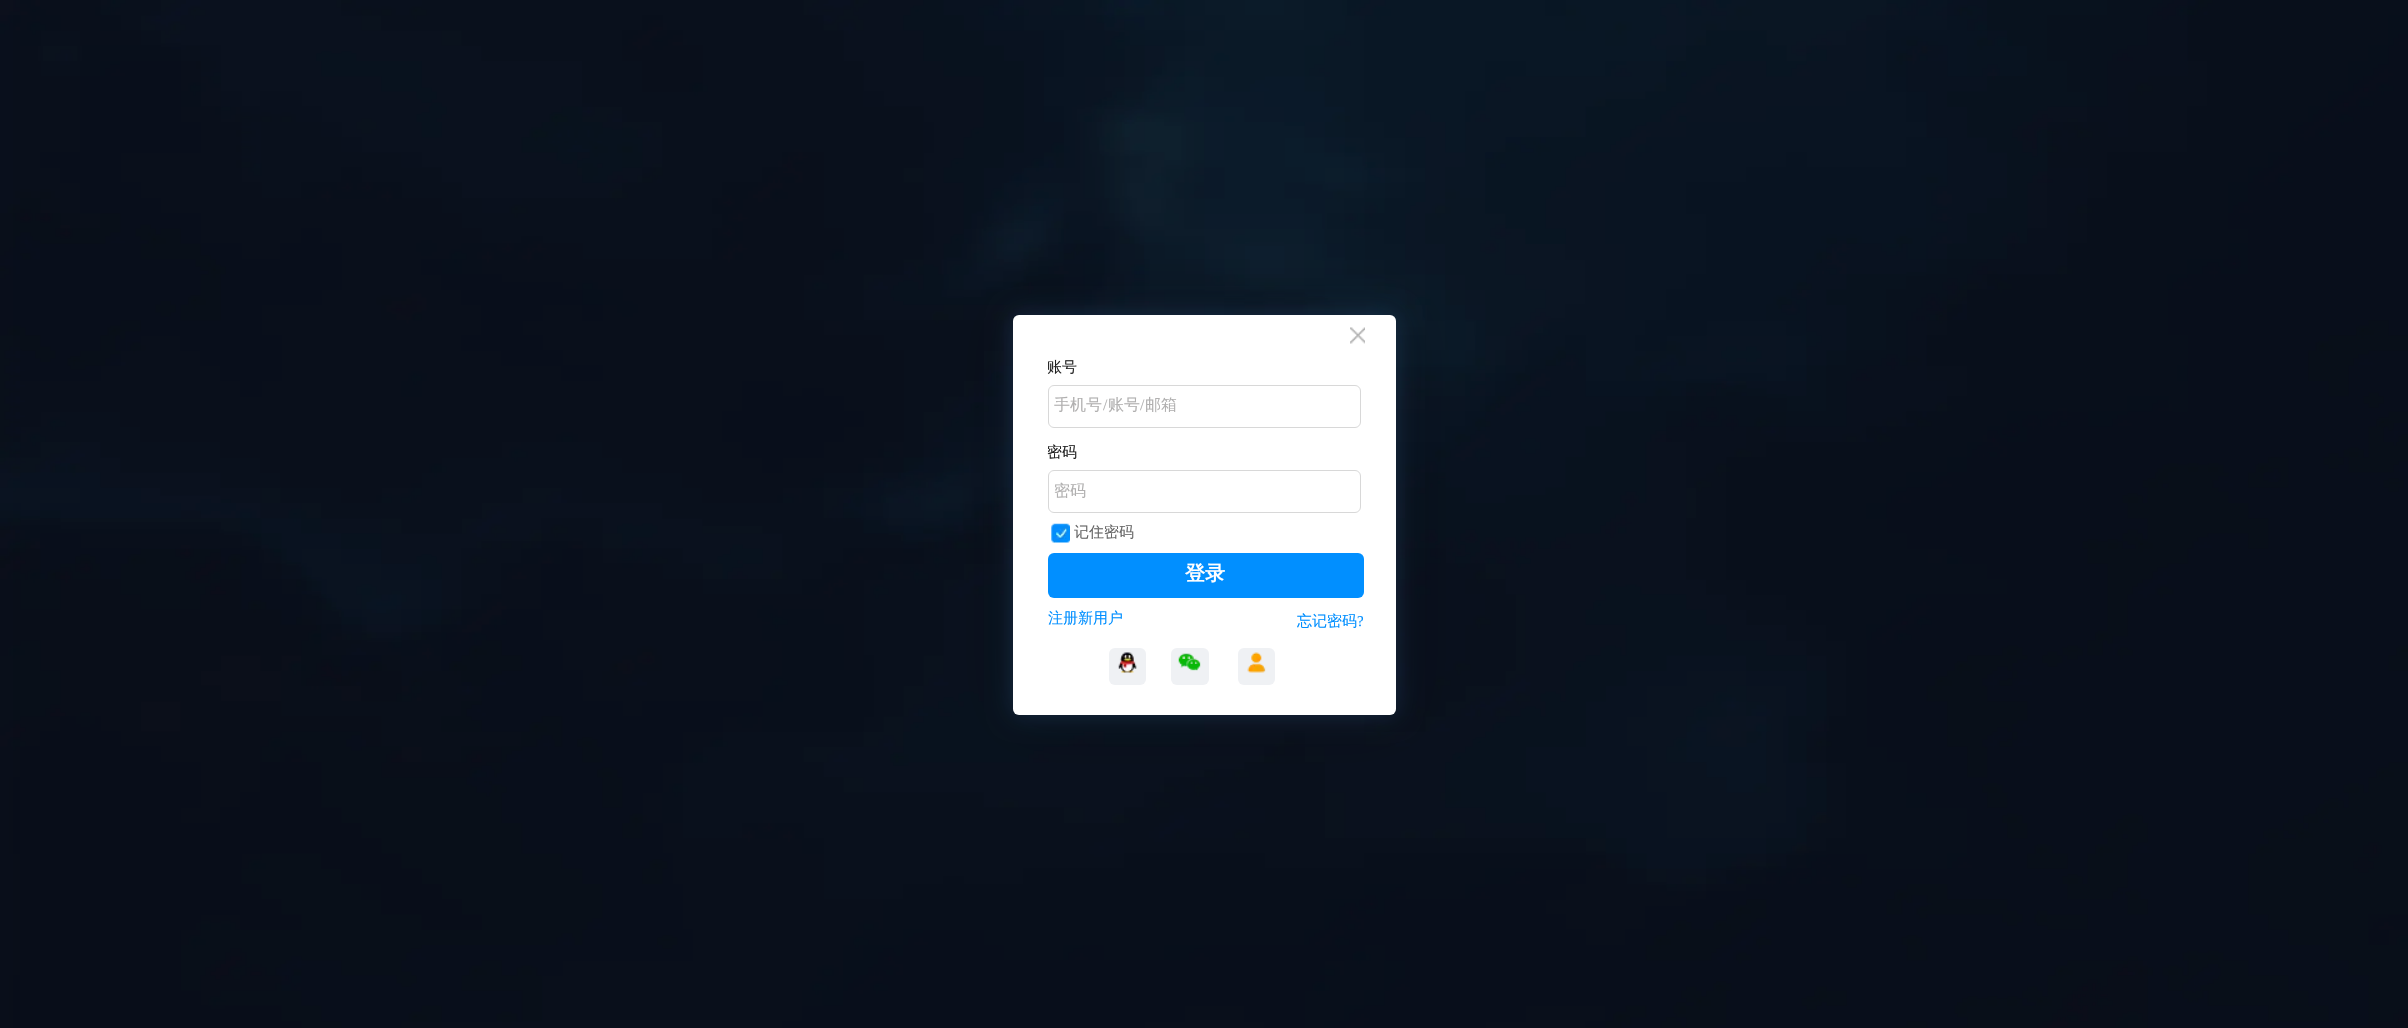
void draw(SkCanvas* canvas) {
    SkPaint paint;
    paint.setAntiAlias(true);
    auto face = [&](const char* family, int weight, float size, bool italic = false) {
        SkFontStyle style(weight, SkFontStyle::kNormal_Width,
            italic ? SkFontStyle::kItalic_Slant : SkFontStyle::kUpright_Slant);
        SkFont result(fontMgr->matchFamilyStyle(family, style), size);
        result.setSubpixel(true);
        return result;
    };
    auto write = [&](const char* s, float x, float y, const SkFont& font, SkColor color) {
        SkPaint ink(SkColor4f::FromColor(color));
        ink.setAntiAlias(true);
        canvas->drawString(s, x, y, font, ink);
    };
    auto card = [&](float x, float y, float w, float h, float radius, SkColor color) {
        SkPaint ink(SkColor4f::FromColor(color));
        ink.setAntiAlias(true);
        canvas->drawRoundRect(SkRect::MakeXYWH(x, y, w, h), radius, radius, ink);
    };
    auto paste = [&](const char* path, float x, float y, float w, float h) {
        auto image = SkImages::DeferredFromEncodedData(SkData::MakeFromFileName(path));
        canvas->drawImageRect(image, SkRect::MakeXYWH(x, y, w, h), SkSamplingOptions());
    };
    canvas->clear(SK_ColorWHITE);
    paste("pic1.png", 0, 0, 2408, 1028);
    paint.setColor(SkColorSetARGB(77, 0, 0, 0));
    paint.setMaskFilter(SkMaskFilter::MakeBlur(kNormal_SkBlurStyle, 31));
    canvas->drawRoundRect(SkRect::MakeXYWH(1014, 316, 384, 400), 6, 6, paint);
    paint.setMaskFilter(nullptr);
    paint.setColor(SkColorSetARGB(51, 86, 157, 236));
    paint.setMaskFilter(SkMaskFilter::MakeBlur(kNormal_SkBlurStyle, 12.5f));
    canvas->drawRoundRect(SkRect::MakeXYWH(1013, 315, 383, 400), 6, 6, paint);
    paint.setMaskFilter(nullptr);
    card(1013, 315, 383, 400, 6, SK_ColorWHITE);
    paste("pic2.png", 1350, 327, 15, 17);
    auto kFont1 = face("WenQuanYi Zen Hei", 500, 15);
    write("账号", 1047, 372, kFont1, SkColorSetRGB(34, 34, 34));
    paint.setStyle(SkPaint::kStroke_Style);
    paint.setStrokeWidth(1);
    paint.setColor(SkColorSetRGB(216, 216, 216));
    canvas->drawRoundRect(SkRect::MakeXYWH(1048.5f, 385.5f, 312, 42), 5.5f, 5.5f, paint);
    auto kFont2 = face("WenQuanYi Zen Hei", 500, 16);
    write("手机号", 1054, 410, kFont2, SkColorSetRGB(177, 176, 176));
    auto kFont3 = face("Liberation Serif", 400, 16);
    write("/", 1103, 410, kFont3, SkColorSetRGB(177, 176, 176));
    write("账号", 1108, 410, kFont2, SkColorSetRGB(177, 176, 176));
    write("/", 1140, 410, kFont3, SkColorSetRGB(177, 176, 176));
    write("邮箱", 1145, 410, kFont2, SkColorSetRGB(177, 176, 176));
    write("密码", 1047, 457, kFont1, SkColorSetRGB(34, 34, 34));
    canvas->drawRoundRect(SkRect::MakeXYWH(1048.5f, 470.5f, 312, 42), 5.5f, 5.5f, paint);
    write("密码", 1054, 496, kFont2, SkColorSetRGB(177, 176, 176));
    paste("pic3.png", 1051, 523, 19, 20);
    write("记住密码", 1074, 537, kFont1, SkColorSetRGB(102, 102, 102));
    card(1048, 553, 316, 45, 6, SkColorSetRGB(1, 143, 255));
    auto kFont4 = face("WenQuanYi Zen Hei", 700, 20);
    write("登录", 1185, 580, kFont4, SK_ColorWHITE);
    write("注册新用户", 1048, 623, kFont1, SkColorSetRGB(1, 143, 255));
    write("忘记密码", 1297, 626, kFont1, SkColorSetRGB(1, 143, 255));
    auto kFont5 = face("Liberation Serif", 400, 15);
    write("?", 1357, 626, kFont5, SkColorSetRGB(1, 143, 255));
    card(1109, 648, 37, 37, 6, SkColorSetRGB(239, 241, 244));
    paste("pic4.png", 1118, 652, 19, 21);
    card(1171, 648, 38, 37, 6, SkColorSetRGB(239, 241, 244));
    paste("pic5.png", 1178, 653, 23, 18);
    card(1238, 648, 37, 37, 6, SkColorSetRGB(239, 241, 244));
    paste("pic6.png", 1247, 652, 19, 21);
}
